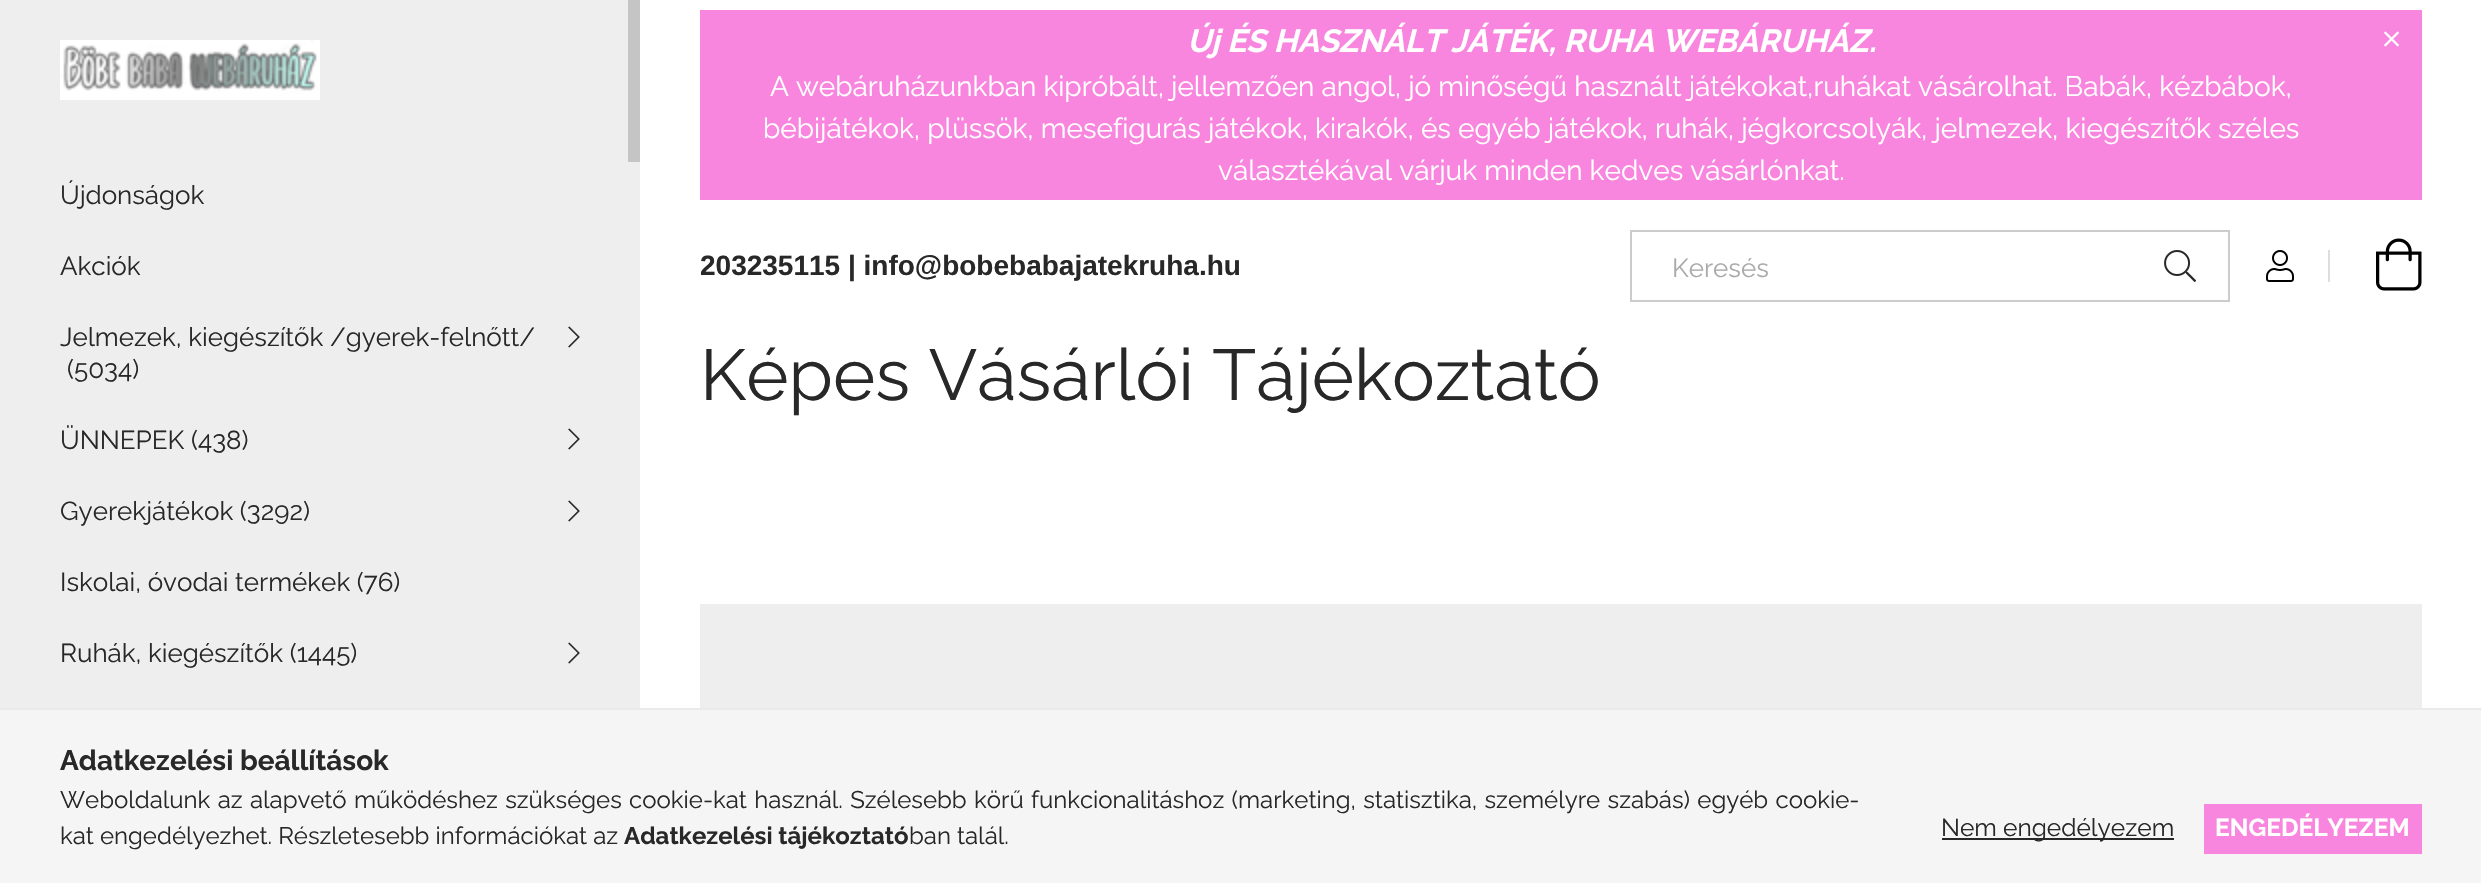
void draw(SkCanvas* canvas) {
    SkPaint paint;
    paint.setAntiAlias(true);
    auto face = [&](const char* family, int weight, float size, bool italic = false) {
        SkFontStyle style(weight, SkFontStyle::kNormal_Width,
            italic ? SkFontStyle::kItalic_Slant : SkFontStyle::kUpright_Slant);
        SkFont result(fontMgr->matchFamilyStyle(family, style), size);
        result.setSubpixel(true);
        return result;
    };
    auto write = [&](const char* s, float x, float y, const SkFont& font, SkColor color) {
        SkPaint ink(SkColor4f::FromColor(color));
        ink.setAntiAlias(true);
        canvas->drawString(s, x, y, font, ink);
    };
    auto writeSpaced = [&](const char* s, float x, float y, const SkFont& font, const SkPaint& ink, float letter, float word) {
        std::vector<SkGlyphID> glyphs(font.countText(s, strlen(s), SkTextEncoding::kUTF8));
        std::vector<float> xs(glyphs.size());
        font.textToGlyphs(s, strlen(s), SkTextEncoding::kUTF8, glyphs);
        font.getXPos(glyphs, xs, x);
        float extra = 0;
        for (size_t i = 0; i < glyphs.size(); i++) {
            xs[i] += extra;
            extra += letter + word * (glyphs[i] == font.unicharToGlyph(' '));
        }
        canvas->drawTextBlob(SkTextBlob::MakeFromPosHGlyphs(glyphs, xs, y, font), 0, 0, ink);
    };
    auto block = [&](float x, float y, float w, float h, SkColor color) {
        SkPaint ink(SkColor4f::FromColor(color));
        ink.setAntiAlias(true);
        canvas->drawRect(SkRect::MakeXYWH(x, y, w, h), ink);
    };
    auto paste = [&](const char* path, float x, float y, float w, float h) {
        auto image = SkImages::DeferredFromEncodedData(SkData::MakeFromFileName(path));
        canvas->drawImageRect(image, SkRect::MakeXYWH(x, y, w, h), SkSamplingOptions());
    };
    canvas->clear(SK_ColorWHITE);
    block(0, 0, 640, 708, SkColorSetRGB(238, 238, 238));
    block(628, 0, 12, 162, SkColorSetRGB(197, 197, 197));
    paste("pic1.png", 60, 40, 260, 60);
    auto kFont1 = face("Raleway", 400, 26);
    write("Újdonságok", 60, 204, kFont1, SkColorSetRGB(40, 40, 40));
    write("Akciók", 60, 275, kFont1, SkColorSetRGB(40, 40, 40));
    write("Jelmezek, kiegészítők /gyerek-felnőtt/", 60, 346, kFont1, SkColorSetRGB(40, 40, 40));
    write("(5034)", 67, 378, kFont1, SkColorSetRGB(40, 40, 40));
    paste("pic2.png", 568, 326, 12, 22);
    write("ÜNNEPEK (438)", 60, 449, kFont1, SkColorSetRGB(40, 40, 40));
    paste("pic2.png", 568, 428, 12, 22);
    write("Gyerekjátékok (3292)", 60, 520, kFont1, SkColorSetRGB(40, 40, 40));
    paste("pic2.png", 568, 500, 12, 22);
    write("Iskolai, óvodai termékek (76)", 60, 591, kFont1, SkColorSetRGB(40, 40, 40));
    write("Ruhák, kiegészítők (1445)", 60, 662, kFont1, SkColorSetRGB(40, 40, 40));
    paste("pic2.png", 568, 642, 12, 22);
    block(700, 10, 1722, 190, SkColorSetRGB(249, 134, 222));
    auto kFont2 = face("Raleway", 700, 32, true);
    write("Új ÉS HASZNÁLT JÁTÉK, RUHA WEBÁRUHÁZ.", 1187, 52, kFont2, SK_ColorWHITE);
    paste("pic3.png", 2384, 31, 15, 16);
    auto kFont3 = face("Raleway", 400, 28);
    write("A webáruházunkban kipróbált, jellemzően angol, jó minőségű használt játékokat,ruhákat vásárolhat. Babák, kézbábok,", 770, 96, kFont3, SK_ColorWHITE);
    write("bébijátékok, plüssök, mesefigurás játékok, kirakók, és egyéb játékok, ruhák, jégkorcsolyák, jelmezek, kiegészítők széles", 763, 138, kFont3, SK_ColorWHITE);
    write("választékával várjuk minden kedves vásárlónkat.", 1218, 180, kFont3, SK_ColorWHITE);
    auto kFont4 = face("Liberation Sans", 700, 28);
    write("203235115 | info@bobebabajatekruha.hu", 700, 275, kFont4, SkColorSetRGB(40, 40, 40));
    paint.setStyle(SkPaint::kStroke_Style);
    paint.setStrokeWidth(2);
    paint.setColor(SkColorSetRGB(204, 204, 204));
    canvas->drawRect(SkRect::MakeXYWH(1631, 231, 598, 70), paint);
    write("Keresés", 1672, 277, kFont1, SkColorSetRGB(170, 170, 170));
    paste("pic4.png", 2164, 250, 32, 32);
    paste("pic5.png", 2266, 250, 28, 32);
    block(2328, 250, 2, 32, SkColorSetRGB(221, 221, 221));
    paste("pic6.png", 2376, 238, 46, 53);
    auto kFont5 = face("Raleway", 400, 72);
    write("Képes Vásárlói Tájékoztató", 700, 400, kFont5, SkColorSetRGB(40, 40, 40));
    block(700, 604, 1722, 104, SkColorSetRGB(238, 238, 238));
    block(0, 710, 2481, 173, SkColorSetRGB(245, 245, 245));
    block(0, 708, 2481, 2, SkColorSetRGB(234, 234, 234));
    auto kFont6 = face("Raleway", 700, 28);
    write("Adatkezelési beállítások", 60, 770, kFont6, SkColorSetRGB(40, 40, 40));
    auto kFont7 = face("Raleway", 400, 24);
    paint.setStyle(SkPaint::kFill_Style);
    paint.setColor(SkColorSetRGB(40, 40, 40));
    writeSpaced("Weboldalunk az alapvető működéshez szükséges cookie-kat használ. Szélesebb körű funkcionalitáshoz (marketing, statisztika, személyre szabás) egyéb cookie-", 60, 808, kFont7, paint, 0, 1.25f);
    write("kat engedélyezhet. Részletesebb információkat az", 60, 844, kFont7, SkColorSetRGB(40, 40, 40));
    auto kFont8 = face("Raleway", 700, 24);
    write("Adatkezelési tájékoztató", 624, 844, kFont8, SkColorSetRGB(40, 40, 40));
    write("ban talál.", 909, 844, kFont7, SkColorSetRGB(40, 40, 40));
    block(1942, 838, 232, 2, SkColorSetRGB(40, 40, 40));
    auto kFont9 = face("Raleway", 400, 24.5f);
    write("Nem engedélyezem", 1941, 836, kFont9, SkColorSetRGB(40, 40, 40));
    block(2204, 804, 218, 50, SkColorSetRGB(249, 134, 222));
    auto kFont10 = face("Raleway", 700, 24.5f);
    write("ENGEDÉLYEZEM", 2215, 836, kFont10, SK_ColorWHITE);
}
